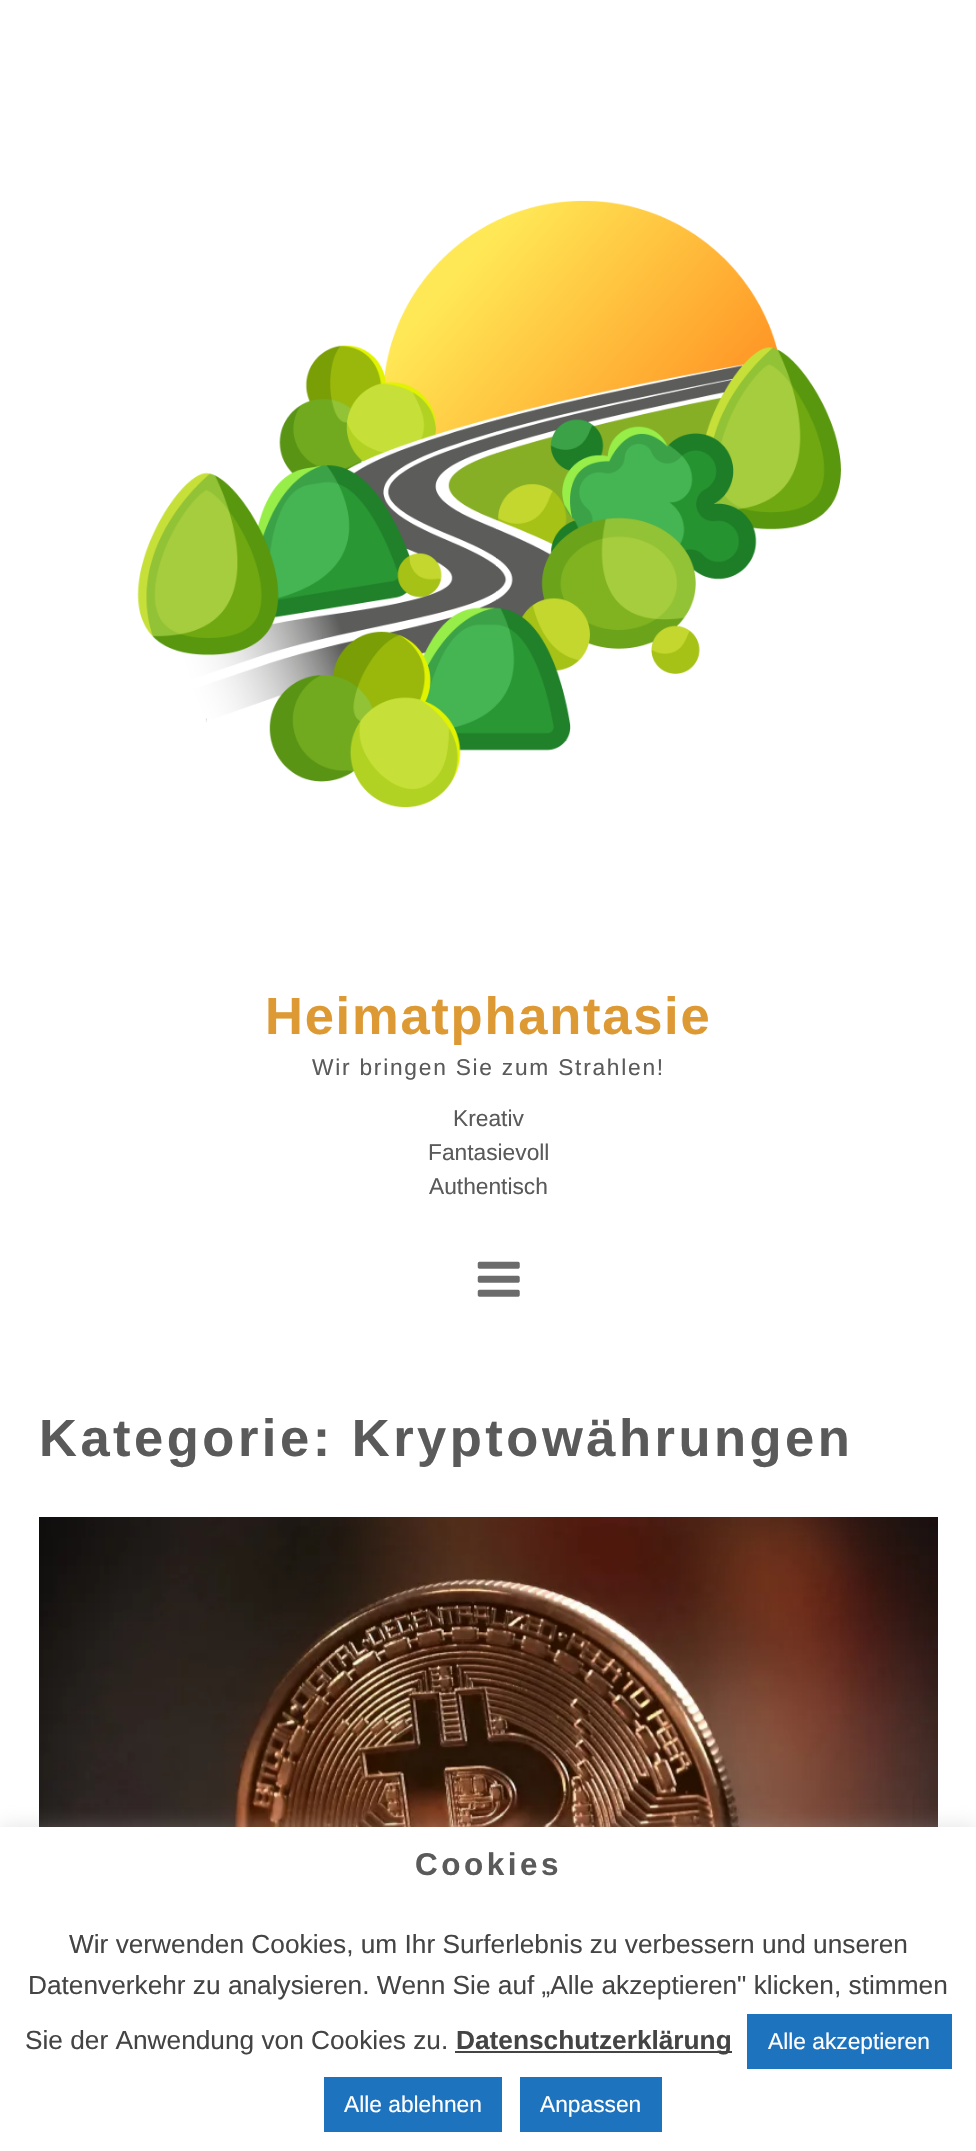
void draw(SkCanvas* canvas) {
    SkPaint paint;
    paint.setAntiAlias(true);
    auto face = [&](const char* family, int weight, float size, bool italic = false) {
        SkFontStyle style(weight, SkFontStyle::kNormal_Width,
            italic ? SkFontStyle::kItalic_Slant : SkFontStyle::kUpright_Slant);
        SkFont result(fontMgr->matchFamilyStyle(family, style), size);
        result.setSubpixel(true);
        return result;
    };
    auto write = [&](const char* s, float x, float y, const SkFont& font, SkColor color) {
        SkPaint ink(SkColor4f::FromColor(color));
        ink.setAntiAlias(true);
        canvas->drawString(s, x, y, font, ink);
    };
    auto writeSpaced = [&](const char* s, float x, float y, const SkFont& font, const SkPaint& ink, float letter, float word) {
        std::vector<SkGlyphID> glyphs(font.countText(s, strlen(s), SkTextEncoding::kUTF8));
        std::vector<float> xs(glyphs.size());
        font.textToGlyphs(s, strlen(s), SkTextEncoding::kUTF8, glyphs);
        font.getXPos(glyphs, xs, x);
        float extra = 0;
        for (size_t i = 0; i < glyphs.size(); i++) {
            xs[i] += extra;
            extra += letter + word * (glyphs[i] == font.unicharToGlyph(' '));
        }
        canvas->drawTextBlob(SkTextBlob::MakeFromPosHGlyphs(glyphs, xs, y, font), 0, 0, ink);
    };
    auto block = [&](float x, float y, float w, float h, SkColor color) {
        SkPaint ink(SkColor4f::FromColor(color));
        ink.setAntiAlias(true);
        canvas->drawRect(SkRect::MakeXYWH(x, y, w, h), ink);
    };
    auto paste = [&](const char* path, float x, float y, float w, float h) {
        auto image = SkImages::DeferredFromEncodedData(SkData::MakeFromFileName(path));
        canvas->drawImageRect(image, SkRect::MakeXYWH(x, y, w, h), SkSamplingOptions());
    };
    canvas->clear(SK_ColorWHITE);
    paste("pic1.png", 137, 200, 704, 608);
    auto kFont1 = face("Liberation Sans", 700, 52.5f);
    paint.setColor(SkColorSetRGB(221, 153, 51));
    writeSpaced("Heimatphantasie", 265, 1034, kFont1, paint, 1.75f, 0);
    auto kFont2 = face("Liberation Sans", 400, 22.75f);
    paint.setColor(SkColorSetRGB(90, 90, 90));
    writeSpaced("Wir bringen Sie zum Strahlen!", 312, 1075, kFont2, paint, 1.75f, 0);
    write("Kreativ", 453, 1126, kFont2, SkColorSetRGB(90, 90, 90));
    write("Fantasievoll", 428, 1160, kFont2, SkColorSetRGB(90, 90, 90));
    write("Authentisch", 429, 1194, kFont2, SkColorSetRGB(90, 90, 90));
    paste("pic2.png", 477, 1261, 43, 36);
    writeSpaced("Kategorie: Kryptowährungen", 39, 1456, kFont1, paint, 3.5f, 0);
    paste("pic3.png", 39, 1517, 899, 310);
    paint.setColor(SkColorSetARGB(77, 172, 171, 171));
    paint.setMaskFilter(SkMaskFilter::MakeBlur(kNormal_SkBlurStyle, 9));
    canvas->drawRect(SkRect::MakeXYWH(0, 1825, 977, 326), paint);
    paint.setMaskFilter(nullptr);
    block(0, 1827, 976, 324, SK_ColorWHITE);
    auto kFont3 = face("Liberation Sans", 700, 31.5f);
    paint.setColor(SkColorSetRGB(90, 90, 90));
    writeSpaced("Cookies", 415, 1875, kFont3, paint, 3.5f, 0);
    auto kFont4 = face("Liberation Sans", 400, 26.25f);
    write("Wir verwenden Cookies, um Ihr Surferlebnis zu verbessern und unseren", 69, 1953, kFont4, SkColorSetRGB(68, 68, 68));
    write("Datenverkehr zu analysieren. Wenn Sie auf „Alle akzeptieren\" klicken, stimmen", 28, 1994, kFont4, SkColorSetRGB(68, 68, 68));
    write("Sie der Anwendung von Cookies zu.", 25, 2049, kFont4, SkColorSetRGB(68, 68, 68));
    block(455, 2051, 277, 2, SkColorSetRGB(68, 68, 68));
    auto kFont5 = face("Liberation Sans", 700, 26.25f);
    write("Datenschutzerklärung", 456, 2049, kFont5, SkColorSetRGB(68, 68, 68));
    block(747, 2014, 205, 55, SkColorSetRGB(30, 115, 190));
    write("Alle akzeptieren", 768, 2049, kFont2, SK_ColorWHITE);
    block(324, 2077, 178, 55, SkColorSetRGB(30, 115, 190));
    write("Alle ablehnen", 344, 2112, kFont2, SK_ColorWHITE);
    block(520, 2077, 142, 55, SkColorSetRGB(30, 115, 190));
    write("Anpassen", 540, 2112, kFont2, SK_ColorWHITE);
}
